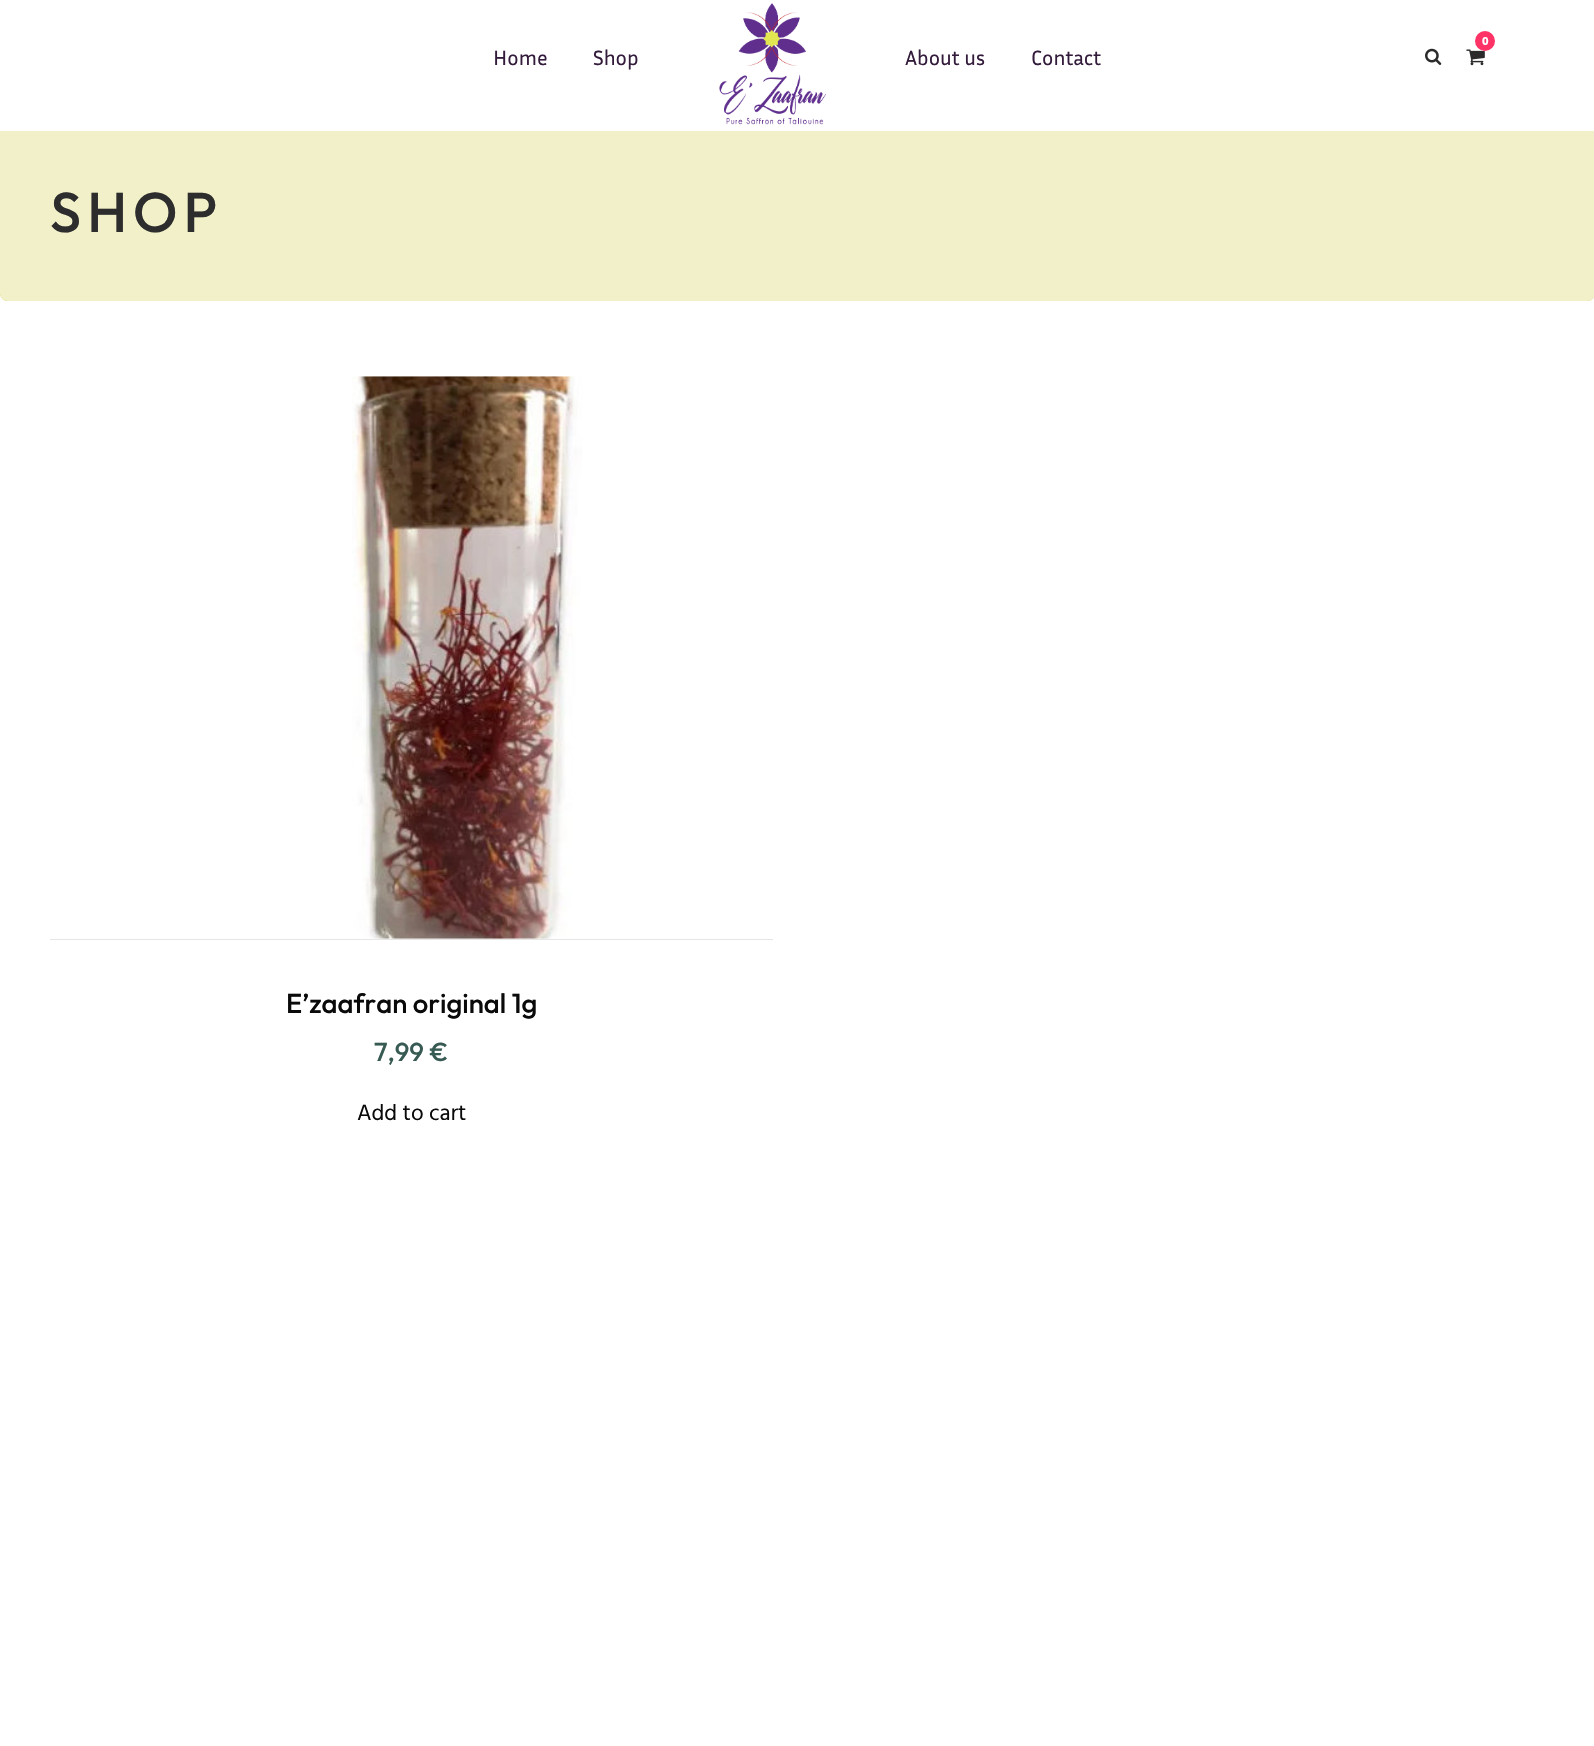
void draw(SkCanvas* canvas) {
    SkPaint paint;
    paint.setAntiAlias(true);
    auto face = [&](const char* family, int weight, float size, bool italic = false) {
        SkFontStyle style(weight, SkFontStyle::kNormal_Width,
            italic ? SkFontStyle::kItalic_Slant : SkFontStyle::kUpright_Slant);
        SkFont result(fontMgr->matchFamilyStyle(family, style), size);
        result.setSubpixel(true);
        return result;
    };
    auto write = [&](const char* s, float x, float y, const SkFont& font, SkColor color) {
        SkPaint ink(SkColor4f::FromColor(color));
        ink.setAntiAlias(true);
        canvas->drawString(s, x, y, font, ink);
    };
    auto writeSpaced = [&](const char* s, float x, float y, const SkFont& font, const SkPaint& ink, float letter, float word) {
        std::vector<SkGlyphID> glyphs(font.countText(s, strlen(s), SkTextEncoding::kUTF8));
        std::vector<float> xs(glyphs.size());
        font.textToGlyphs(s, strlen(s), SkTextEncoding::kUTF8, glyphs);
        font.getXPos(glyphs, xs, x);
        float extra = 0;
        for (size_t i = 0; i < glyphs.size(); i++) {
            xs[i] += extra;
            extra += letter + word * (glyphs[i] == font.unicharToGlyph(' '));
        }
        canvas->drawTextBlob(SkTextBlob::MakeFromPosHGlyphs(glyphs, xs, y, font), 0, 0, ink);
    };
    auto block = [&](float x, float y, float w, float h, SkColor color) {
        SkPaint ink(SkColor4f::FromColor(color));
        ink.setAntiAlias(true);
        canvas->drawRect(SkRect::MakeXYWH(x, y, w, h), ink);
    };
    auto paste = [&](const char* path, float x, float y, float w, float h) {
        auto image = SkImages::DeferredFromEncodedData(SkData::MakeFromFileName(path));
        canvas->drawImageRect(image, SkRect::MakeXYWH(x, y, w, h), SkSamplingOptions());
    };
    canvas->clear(SK_ColorWHITE);
    paint.setColor(SkColorSetRGB(201, 189, 28));
    canvas->drawPath(SkPathBuilder().moveTo(4, 0).lineTo(1591, 0).cubicTo(1593, 0, 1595, 2, 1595, 4).lineTo(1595, 293).cubicTo(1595, 297.5f, 1591.5f, 301, 1587, 301).lineTo(8, 301).cubicTo(3.5f, 301, 0, 297.5f, 0, 293).lineTo(0, 4).cubicTo(0, 2, 2, 0, 4, 0).close().detach(), paint);
    paint.setColor(SkColorSetARGB(194, 255, 255, 255));
    canvas->drawPath(SkPathBuilder().moveTo(4, 0).lineTo(1591, 0).cubicTo(1593, 0, 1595, 2, 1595, 4).lineTo(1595, 293).cubicTo(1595, 297.5f, 1591.5f, 301, 1587, 301).lineTo(8, 301).cubicTo(3.5f, 301, 0, 297.5f, 0, 293).lineTo(0, 4).cubicTo(0, 2, 2, 0, 4, 0).close().detach(), paint);
    block(0, 0, 1594, 131, SK_ColorWHITE);
    paste("pic1.png", 1466, 49, 19, 17);
    paint.setColor(SkColorSetRGB(255, 51, 102));
    canvas->drawCircle(1485, 41, 10, paint);
    auto kFont1 = face("Hind Vadodara", 700, 12);
    write("0", 1482, 45, kFont1, SK_ColorWHITE);
    paste("pic2.png", 1425, 48, 17, 17);
    auto kFont2 = face("Inria Sans", 400, 21);
    write("Home", 493, 65, kFont2, SkColorSetRGB(51, 27, 59));
    write("Shop", 593, 65, kFont2, SkColorSetRGB(51, 27, 59));
    paste("pic3.png", 719, 3, 107, 122);
    write("About us", 905, 65, kFont2, SkColorSetRGB(51, 27, 59));
    write("Contact", 1031, 65, kFont2, SkColorSetRGB(51, 27, 59));
    auto kFont3 = face("Outfit", 500, 56);
    paint.setColor(SkColorSetRGB(45, 45, 45));
    writeSpaced("SHOP", 50, 232, kFont3, paint, 6, 0);
    block(50, 939, 723, 1, SkColorSetRGB(230, 230, 230));
    paste("pic4.png", 352, 376, 230, 563);
    auto kFont4 = face("Outfit", 500, 27.5f);
    write("E’zaafran original 1g", 286, 1013, kFont4, SkColorSetRGB(10, 10, 10));
    auto kFont5 = face("Outfit", 500, 26);
    write("7,99 €", 374, 1061, kFont5, SkColorSetRGB(55, 91, 83));
    auto kFont6 = face("Hind Vadodara", 400, 22.5f);
    write("Add to cart", 357, 1120, kFont6, SkColorSetRGB(10, 10, 10));
}
